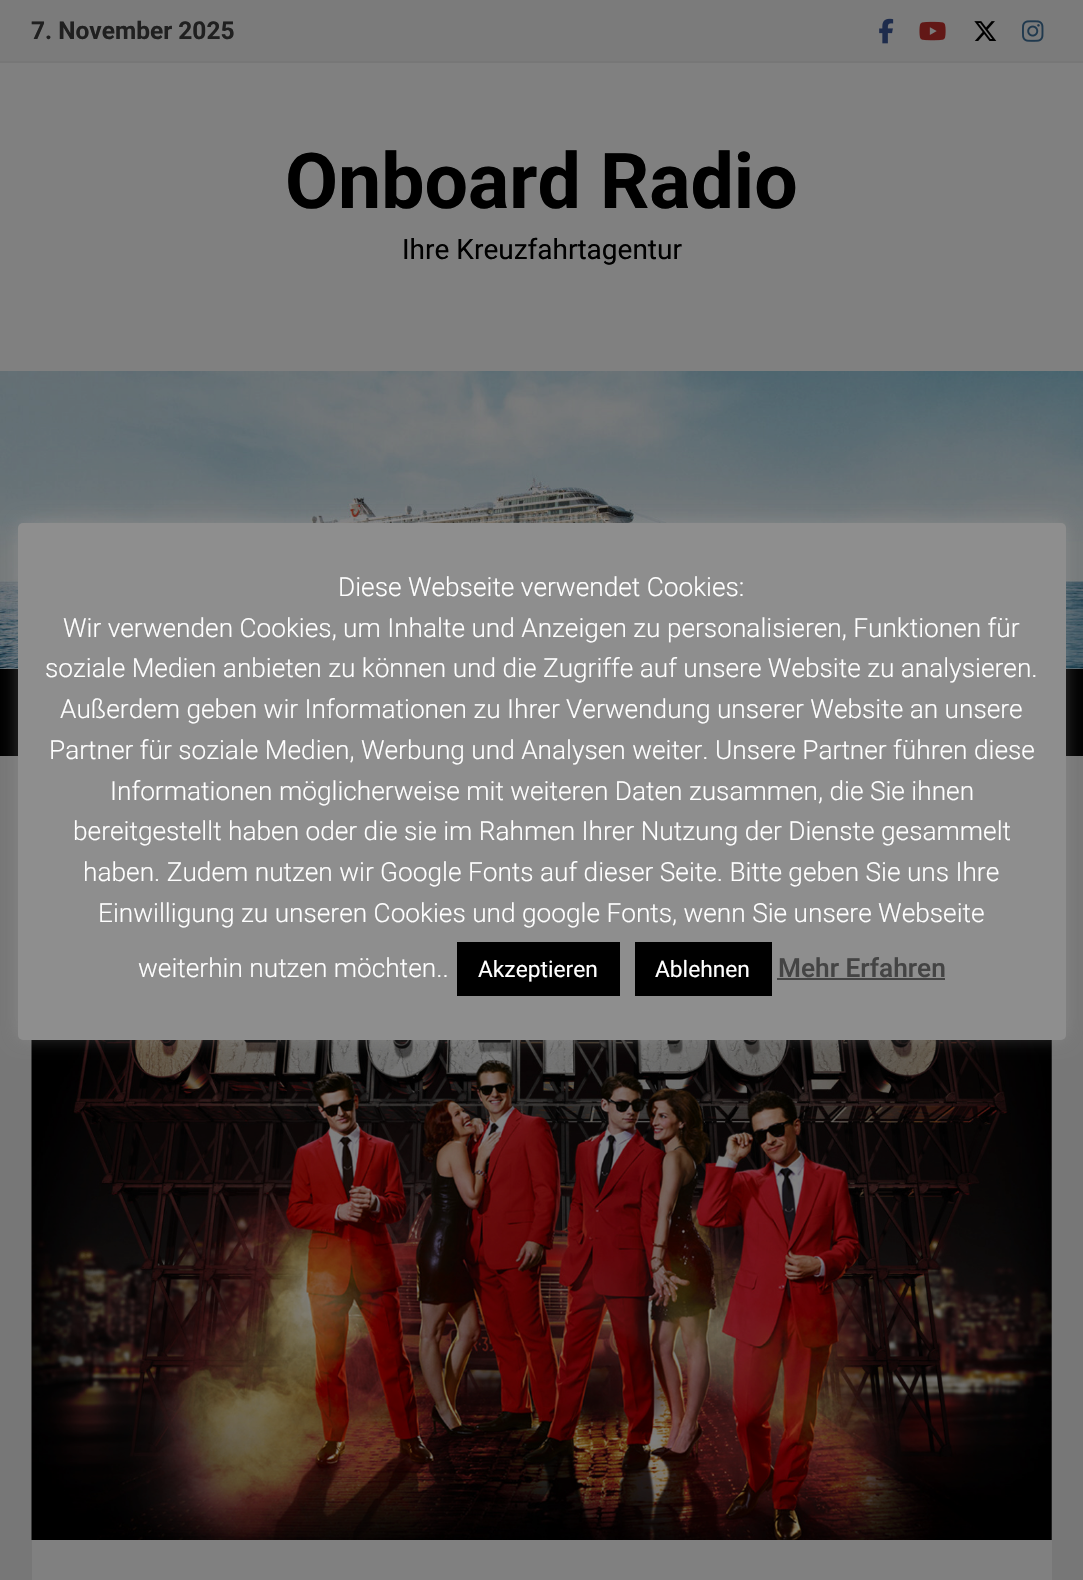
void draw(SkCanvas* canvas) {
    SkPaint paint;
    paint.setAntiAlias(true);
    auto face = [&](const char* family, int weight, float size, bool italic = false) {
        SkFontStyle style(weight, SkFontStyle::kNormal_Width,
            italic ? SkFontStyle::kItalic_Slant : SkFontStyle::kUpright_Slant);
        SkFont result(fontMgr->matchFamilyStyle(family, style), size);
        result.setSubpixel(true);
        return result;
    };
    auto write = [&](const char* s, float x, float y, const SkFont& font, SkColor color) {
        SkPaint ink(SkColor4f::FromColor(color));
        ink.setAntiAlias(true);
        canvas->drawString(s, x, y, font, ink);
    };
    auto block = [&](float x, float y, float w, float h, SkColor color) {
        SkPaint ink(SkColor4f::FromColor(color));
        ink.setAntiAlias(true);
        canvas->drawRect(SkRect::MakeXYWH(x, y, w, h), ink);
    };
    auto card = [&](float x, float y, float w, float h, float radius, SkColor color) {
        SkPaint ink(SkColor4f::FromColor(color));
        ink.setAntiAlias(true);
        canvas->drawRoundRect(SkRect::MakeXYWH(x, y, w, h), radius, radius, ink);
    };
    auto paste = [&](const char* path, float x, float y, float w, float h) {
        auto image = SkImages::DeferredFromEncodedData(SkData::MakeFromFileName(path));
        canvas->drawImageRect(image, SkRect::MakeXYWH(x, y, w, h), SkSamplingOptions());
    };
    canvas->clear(SkColorSetRGB(128, 128, 128));
    block(0, 0, 1083, 61, SkColorSetRGB(123, 123, 123));
    block(0, 61, 1083, 2, SkColorSetRGB(119, 119, 119));
    auto kFont1 = face("Roboto", 700, 24.5f);
    write("7. November 2025", 31, 39, kFont1, SkColorSetRGB(32, 32, 32));
    paste("pic1.png", 879, 18, 15, 26);
    paste("pic2.png", 919, 21, 27, 20);
    paste("pic3.png", 974, 21, 23, 20);
    paste("pic4.png", 1022, 20, 22, 22);
    auto kFont2 = face("Roboto", 700, 77);
    write("Onboard Radio", 285, 208, kFont2, SK_ColorBLACK);
    auto kFont3 = face("Roboto", 400, 28);
    write("Ihre Kreuzfahrtagentur", 402, 259, kFont3, SK_ColorBLACK);
    paste("pic5.png", 0, 371, 1083, 298);
    block(0, 669, 1083, 87, SK_ColorBLACK);
    block(0, 756, 1083, 824, SkColorSetRGB(119, 119, 119));
    block(32, 1040, 1020, 540, SkColorSetRGB(128, 128, 128));
    paste("pic6.png", 31, 1040, 1021, 500);
    paint.setColor(SkColorSetARGB(77, 172, 171, 171));
    paint.setMaskFilter(SkMaskFilter::MakeBlur(kNormal_SkBlurStyle, 9));
    canvas->drawRoundRect(SkRect::MakeXYWH(18, 522, 1048, 516), 5, 5, paint);
    paint.setMaskFilter(nullptr);
    card(18, 523, 1048, 517, 5, SkColorSetRGB(142, 142, 142));
    auto kFont4 = face("Roboto", 300, 26.25f);
    write("Diese Webseite verwendet Cookies:", 338, 596, kFont4, SK_ColorWHITE);
    write("Wir verwenden Cookies, um Inhalte und Anzeigen zu personalisieren, Funktionen für", 63, 637, kFont4, SK_ColorWHITE);
    write("soziale Medien anbieten zu können und die Zugriffe auf unsere Website zu analysieren.", 45, 677, kFont4, SK_ColorWHITE);
    write("Außerdem geben wir Informationen zu Ihrer Verwendung unserer Website an unsere", 60, 718, kFont4, SK_ColorWHITE);
    write("Partner für soziale Medien, Werbung und Analysen weiter. Unsere Partner führen diese", 49, 759, kFont4, SK_ColorWHITE);
    write("Informationen möglicherweise mit weiteren Daten zusammen, die Sie ihnen", 110, 800, kFont4, SK_ColorWHITE);
    write("bereitgestellt haben oder die sie im Rahmen Ihrer Nutzung der Dienste gesammelt", 73, 840, kFont4, SK_ColorWHITE);
    write("haben. Zudem nutzen wir Google Fonts auf dieser Seite. Bitte geben Sie uns Ihre", 83, 881, kFont4, SK_ColorWHITE);
    write("Einwilligung zu unseren Cookies und google Fonts, wenn Sie unsere Webseite", 98, 922, kFont4, SK_ColorWHITE);
    write("weiterhin nutzen möchten..", 138, 977, kFont4, SK_ColorWHITE);
    block(457, 942, 163, 54, SK_ColorBLACK);
    auto kFont5 = face("Roboto", 400, 22.75f);
    write("Akzeptieren", 478, 977, kFont5, SK_ColorWHITE);
    block(635, 942, 137, 54, SK_ColorBLACK);
    write("Ablehnen", 655, 977, kFont5, SK_ColorWHITE);
    auto kFont6 = face("Roboto", 500, 26.25f);
    write("Mehr Erfahren", 778, 977, kFont6, SkColorSetRGB(68, 68, 68));
    block(777, 978, 168, 2, SkColorSetRGB(68, 68, 68));
}
